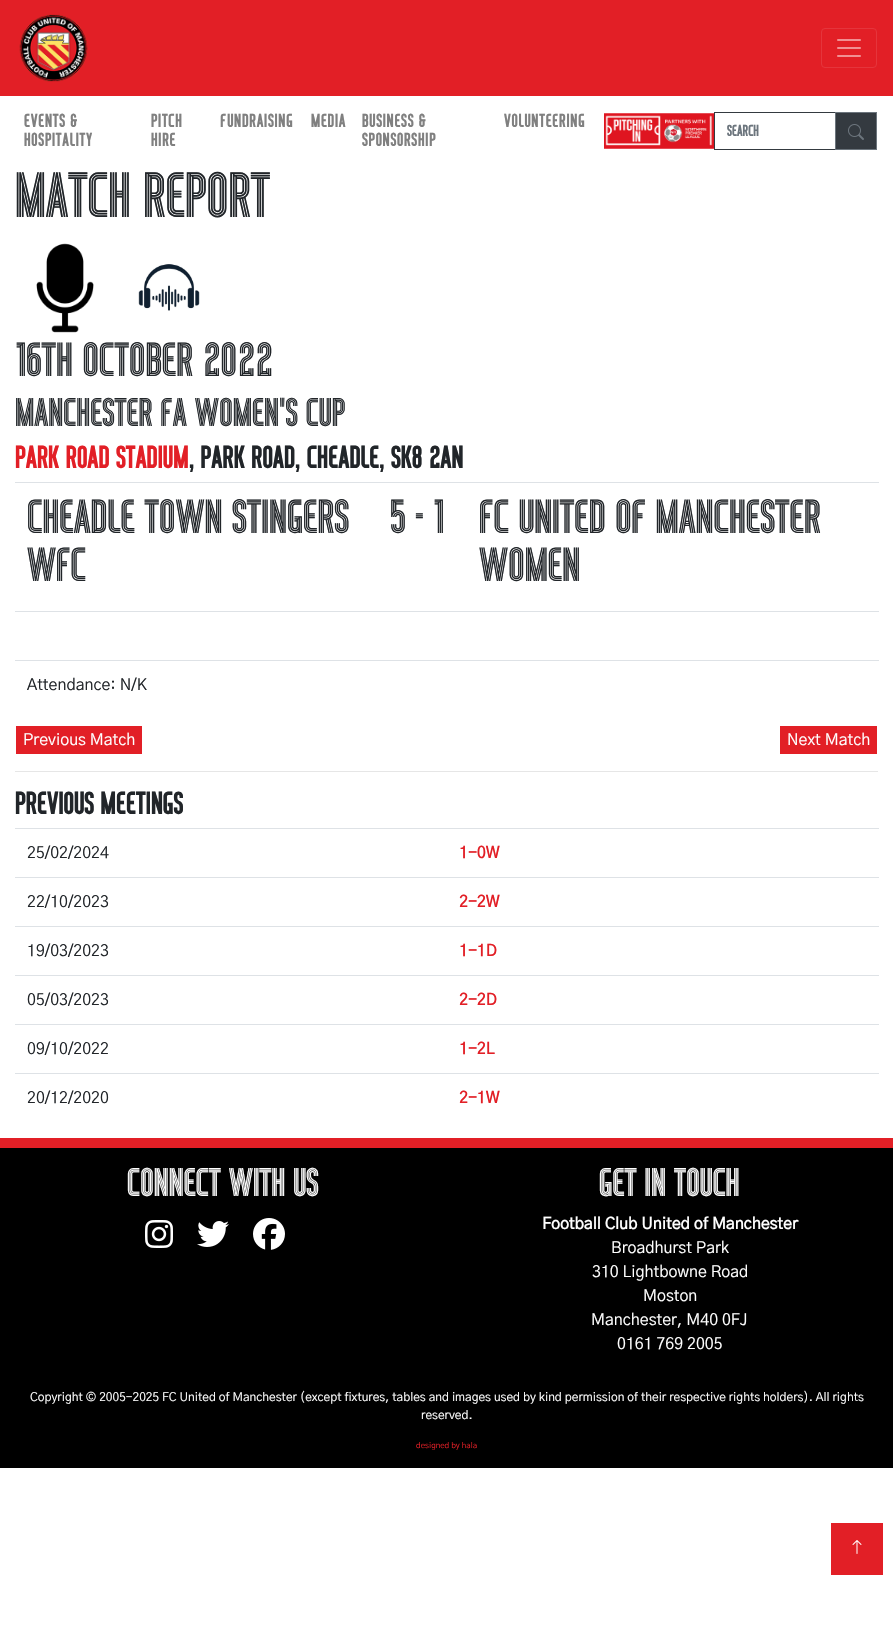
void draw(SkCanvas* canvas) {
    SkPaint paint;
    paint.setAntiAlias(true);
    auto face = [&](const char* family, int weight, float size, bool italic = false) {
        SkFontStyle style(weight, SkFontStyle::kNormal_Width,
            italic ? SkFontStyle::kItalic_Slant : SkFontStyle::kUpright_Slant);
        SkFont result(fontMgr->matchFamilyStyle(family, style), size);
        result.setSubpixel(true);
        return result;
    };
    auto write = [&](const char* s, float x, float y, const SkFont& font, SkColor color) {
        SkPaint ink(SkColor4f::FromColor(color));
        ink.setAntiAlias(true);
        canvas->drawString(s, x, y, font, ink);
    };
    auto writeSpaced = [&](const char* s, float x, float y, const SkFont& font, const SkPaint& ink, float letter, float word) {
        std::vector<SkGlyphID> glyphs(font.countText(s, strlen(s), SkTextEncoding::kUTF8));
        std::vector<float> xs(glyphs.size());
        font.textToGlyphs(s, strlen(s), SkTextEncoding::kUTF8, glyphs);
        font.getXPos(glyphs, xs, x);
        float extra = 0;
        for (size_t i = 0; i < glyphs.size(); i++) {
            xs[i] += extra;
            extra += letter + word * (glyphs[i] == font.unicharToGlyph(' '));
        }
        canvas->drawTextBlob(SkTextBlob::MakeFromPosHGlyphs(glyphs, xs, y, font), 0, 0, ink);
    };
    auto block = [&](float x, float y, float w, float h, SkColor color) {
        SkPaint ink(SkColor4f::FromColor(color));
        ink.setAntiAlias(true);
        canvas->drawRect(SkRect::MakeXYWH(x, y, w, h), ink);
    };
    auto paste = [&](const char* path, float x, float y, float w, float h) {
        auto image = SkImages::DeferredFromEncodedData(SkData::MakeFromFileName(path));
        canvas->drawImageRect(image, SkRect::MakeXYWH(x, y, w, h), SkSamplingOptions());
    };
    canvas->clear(SK_ColorWHITE);
    block(0, 0, 893, 96, SkColorSetRGB(226, 31, 38));
    paste("pic1.png", 19, 14, 69, 68);
    paint.setStyle(SkPaint::kStroke_Style);
    paint.setStrokeWidth(1);
    paint.setColor(SkColorSetRGB(229, 53, 60));
    canvas->drawRoundRect(SkRect::MakeXYWH(821.5f, 28.5f, 55, 39), 3.5f, 3.5f, paint);
    paste("pic2.png", 837, 39, 24, 18);
    auto kFont1 = face("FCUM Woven", 700, 19);
    paint.setStyle(SkPaint::kFill_Style);
    paint.setColor(SkColorSetRGB(128, 128, 128));
    writeSpaced("EVENTS &", 24, 127, kFont1, paint, 0.75f, 0);
    writeSpaced("HOSPITALITY", 24, 146, kFont1, paint, 0.75f, 0);
    writeSpaced("PITCH", 151, 127, kFont1, paint, 0.75f, 0);
    writeSpaced("HIRE", 151, 146, kFont1, paint, 0.75f, 0);
    writeSpaced("FUNDRAISING", 220, 127, kFont1, paint, 0.75f, 0);
    writeSpaced("MEDIA", 311, 127, kFont1, paint, 0.75f, 0);
    writeSpaced("BUSINESS &", 362, 127, kFont1, paint, 0.75f, 0);
    writeSpaced("SPONSORSHIP", 362, 146, kFont1, paint, 0.75f, 0);
    writeSpaced("VOLUNTEERING", 504, 127, kFont1, paint, 0.75f, 0);
    paste("pic3.png", 604, 113, 110, 36);
    paint.setStyle(SkPaint::kStroke_Style);
    paint.setColor(SkColorSetRGB(52, 58, 64));
    canvas->drawRect(SkRect::MakeXYWH(714.5f, 112.5f, 121, 37), paint);
    auto kFont2 = face("FCUM Woven", 700, 16);
    write("Search", 727, 136, kFont2, SkColorSetRGB(108, 117, 125));
    paint.setStyle(SkPaint::kFill_Style);
    canvas->drawRect(SkRect::MakeXYWH(835.5f, 112.5f, 41, 37), paint);
    paint.setStyle(SkPaint::kStroke_Style);
    paint.setColor(SkColorSetRGB(108, 117, 125));
    canvas->drawRect(SkRect::MakeXYWH(835.5f, 112.5f, 41, 37), paint);
    paste("pic4.png", 848, 124, 16, 16);
    auto kFont3 = face("FCUM Woven", 400, 64);
    write("MATCH REPORT", 15, 217, kFont3, SkColorSetRGB(33, 37, 41));
    paste("pic5.png", 36, 243, 58, 90);
    paste("pic6.png", 138, 264, 62, 47);
    auto kFont4 = face("FCUM Woven", 400, 48);
    write("16TH OCTOBER 2022", 15, 376, kFont4, SkColorSetRGB(33, 37, 41));
    auto kFont5 = face("FCUM Woven", 400, 40);
    write("MANCHESTER FA WOMEN'S CUP", 15, 426, kFont5, SkColorSetRGB(33, 37, 41));
    auto kFont6 = face("FCUM Woven", 700, 32);
    write("PARK ROAD STADIUM", 15, 468, kFont6, SkColorSetRGB(226, 31, 38));
    write(", PARK ROAD, CHEADLE, SK8 2AN", 189, 468, kFont6, SkColorSetRGB(33, 37, 41));
    write("CHEADLE TOWN STINGERS", 27, 533, kFont4, SkColorSetRGB(33, 37, 41));
    write("WFC", 27, 581, kFont4, SkColorSetRGB(33, 37, 41));
    write("5 - 1", 390, 533, kFont4, SkColorSetRGB(33, 37, 41));
    block(15, 482, 864, 1, SkColorSetRGB(222, 226, 230));
    write("FC UNITED OF MANCHESTER", 479, 533, kFont4, SkColorSetRGB(33, 37, 41));
    write("WOMEN", 479, 581, kFont4, SkColorSetRGB(33, 37, 41));
    block(15, 611, 864, 1, SkColorSetRGB(222, 226, 230));
    block(15, 660, 864, 1, SkColorSetRGB(222, 226, 230));
    auto kFont7 = face("Gothic A1", 400, 16);
    write("Attendance: N/K", 27, 690, kFont7, SkColorSetRGB(33, 37, 41));
    block(16, 726, 126, 28, SkColorSetRGB(226, 31, 38));
    write("Previous Match", 23, 745, kFont7, SK_ColorWHITE);
    block(780, 726, 97, 28, SkColorSetRGB(226, 31, 38));
    write("Next Match", 787, 745, kFont7, SK_ColorWHITE);
    block(15, 771, 863, 1, SkColorSetRGB(230, 230, 230));
    write("PREVIOUS MEETINGS", 15, 814, kFont6, SkColorSetRGB(33, 37, 41));
    write("25/02/2024", 27, 858, kFont7, SkColorSetRGB(33, 37, 41));
    block(15, 828, 864, 1, SkColorSetRGB(222, 226, 230));
    auto kFont8 = face("Gothic A1", 700, 16);
    write("1-0W", 459, 858, kFont8, SkColorSetRGB(226, 31, 38));
    write("22/10/2023", 27, 907, kFont7, SkColorSetRGB(33, 37, 41));
    block(15, 877, 864, 1, SkColorSetRGB(222, 226, 230));
    write("2-2W", 459, 907, kFont8, SkColorSetRGB(226, 31, 38));
    write("19/03/2023", 27, 956, kFont7, SkColorSetRGB(33, 37, 41));
    block(15, 926, 864, 1, SkColorSetRGB(222, 226, 230));
    write("1-1D", 459, 956, kFont8, SkColorSetRGB(226, 31, 38));
    write("05/03/2023", 27, 1005, kFont7, SkColorSetRGB(33, 37, 41));
    block(15, 975, 864, 1, SkColorSetRGB(222, 226, 230));
    write("2-2D", 459, 1005, kFont8, SkColorSetRGB(226, 31, 38));
    write("09/10/2022", 27, 1054, kFont7, SkColorSetRGB(33, 37, 41));
    block(15, 1024, 864, 1, SkColorSetRGB(222, 226, 230));
    write("1-2L", 459, 1054, kFont8, SkColorSetRGB(226, 31, 38));
    write("20/12/2020", 27, 1103, kFont7, SkColorSetRGB(33, 37, 41));
    block(15, 1073, 864, 1, SkColorSetRGB(222, 226, 230));
    write("2-1W", 459, 1103, kFont8, SkColorSetRGB(226, 31, 38));
    block(0, 1148, 893, 320, SK_ColorBLACK);
    block(0, 1138, 893, 10, SkColorSetRGB(226, 31, 38));
    write("CONNECT WITH US", 127, 1196, kFont5, SK_ColorWHITE);
    paste("pic7.png", 145, 1220, 28, 28);
    paste("pic8.png", 197, 1221, 32, 26);
    paste("pic9.png", 253, 1218, 32, 32);
    write("GET IN TOUCH", 599, 1196, kFont5, SK_ColorWHITE);
    write("Football Club United of Manchester", 542, 1229, kFont8, SK_ColorWHITE);
    write("Broadhurst Park", 611, 1253, kFont7, SK_ColorWHITE);
    write("310 Lightbowne Road", 592, 1277, kFont7, SK_ColorWHITE);
    write("Moston", 643, 1301, kFont7, SK_ColorWHITE);
    write("Manchester, M40 0FJ", 591, 1325, kFont7, SK_ColorWHITE);
    write("0161 769 2005", 617, 1349, kFont7, SK_ColorWHITE);
    auto kFont9 = face("Gothic A1", 400, 12);
    write("Copyright © 2005-2025 FC United of Manchester (except fixtures, tables and images used by kind permission of their respective rights holders). All rights", 30, 1401, kFont9, SK_ColorWHITE);
    write("reserved.", 421, 1419, kFont9, SK_ColorWHITE);
    auto kFont10 = face("Gothic A1", 400, 8);
    write("designed by hala", 416, 1448, kFont10, SkColorSetRGB(226, 31, 38));
    block(831, 1523, 52, 52, SkColorSetRGB(226, 31, 38));
    paste("pic10.png", 852, 1540, 10, 14);
}
